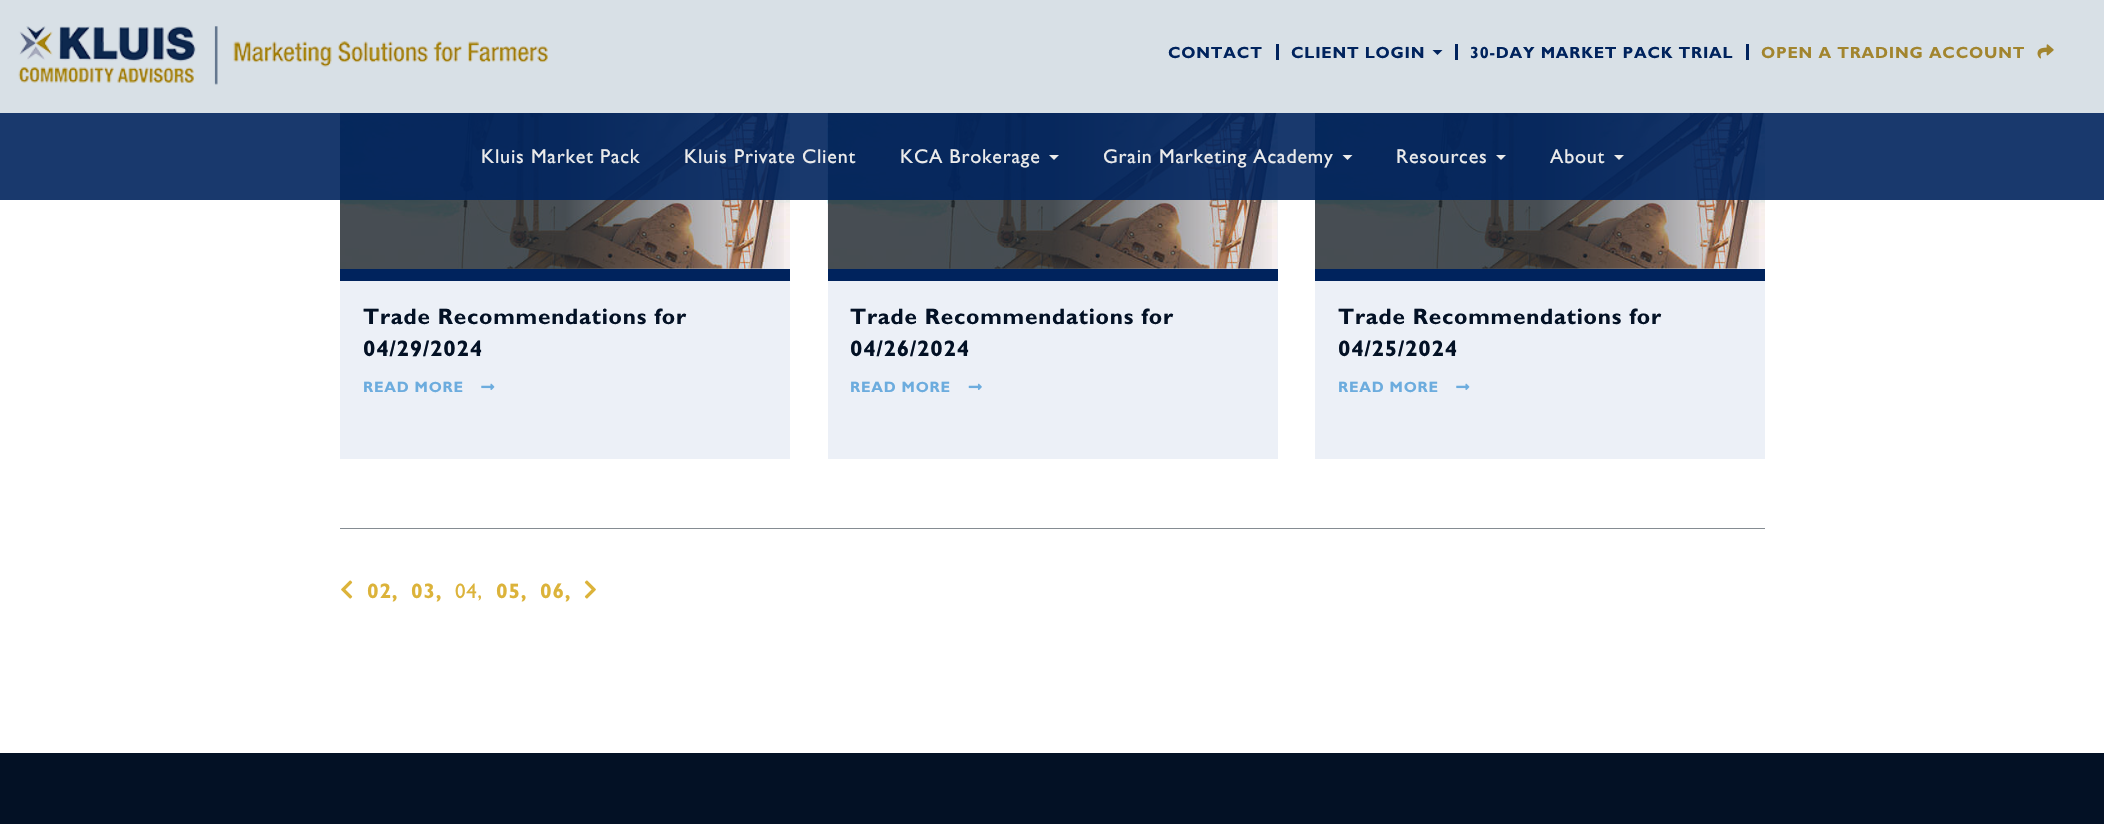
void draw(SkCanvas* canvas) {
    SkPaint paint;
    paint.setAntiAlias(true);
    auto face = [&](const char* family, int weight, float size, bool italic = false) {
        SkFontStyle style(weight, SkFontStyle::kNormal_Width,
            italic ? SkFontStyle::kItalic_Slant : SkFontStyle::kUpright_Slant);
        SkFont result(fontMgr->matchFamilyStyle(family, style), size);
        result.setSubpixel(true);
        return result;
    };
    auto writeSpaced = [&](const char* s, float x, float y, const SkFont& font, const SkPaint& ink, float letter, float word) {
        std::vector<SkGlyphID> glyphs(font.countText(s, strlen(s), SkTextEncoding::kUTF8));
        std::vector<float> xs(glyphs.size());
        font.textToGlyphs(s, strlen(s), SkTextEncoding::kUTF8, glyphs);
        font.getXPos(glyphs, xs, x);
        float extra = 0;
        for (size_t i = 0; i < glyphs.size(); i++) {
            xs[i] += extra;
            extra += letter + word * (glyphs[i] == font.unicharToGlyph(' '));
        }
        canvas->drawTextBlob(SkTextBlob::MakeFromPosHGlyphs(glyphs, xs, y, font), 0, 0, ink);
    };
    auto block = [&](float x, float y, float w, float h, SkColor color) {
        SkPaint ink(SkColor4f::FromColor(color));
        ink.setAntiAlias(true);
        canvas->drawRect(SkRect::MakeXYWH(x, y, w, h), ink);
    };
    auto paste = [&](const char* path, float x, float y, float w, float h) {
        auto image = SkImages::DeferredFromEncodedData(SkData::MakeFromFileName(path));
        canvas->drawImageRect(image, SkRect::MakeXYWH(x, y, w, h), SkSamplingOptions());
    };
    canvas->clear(SK_ColorWHITE);
    block(340, 268, 450, 191, SkColorSetRGB(236, 240, 247));
    paste("pic3.png", 340, 113, 450, 156);
    {
        const SkColor colors[] = {SkColorSetARGB(204, 26, 36, 43), SkColorSetARGB(0, 26, 36, 43)};
        const float stops[] = {0.5f, 1};
        const SkPoint ends[] = {{340, 141}, {790, 141}};
        paint.setShader(SkGradientShader::MakeLinear(ends, colors, stops, 2, SkTileMode::kClamp));
        paint.setAlpha(255);
    }
    canvas->drawRect(SkRect::MakeXYWH(340, 113, 444, 156), paint);
    block(828, 113, 450, 346, SkColorSetRGB(236, 240, 247));
    paste("pic5.png", 827, 113, 451, 156);
    {
        const SkColor colors[] = {SkColorSetARGB(204, 26, 36, 43), SkColorSetARGB(0, 26, 36, 43)};
        const float stops[] = {0.5f, 1};
        const SkPoint ends[] = {{828, 141}, {1278, 141}};
        paint.setShader(SkGradientShader::MakeLinear(ends, colors, stops, 2, SkTileMode::kClamp));
        paint.setAlpha(255);
    }
    canvas->drawRect(SkRect::MakeXYWH(828, 113, 444, 156), paint);
    block(1315, 268, 450, 191, SkColorSetRGB(236, 240, 247));
    paste("pic3.png", 1315, 113, 450, 156);
    {
        const SkColor colors[] = {SkColorSetARGB(204, 26, 36, 43), SkColorSetARGB(0, 26, 36, 43)};
        const float stops[] = {0.5f, 1};
        const SkPoint ends[] = {{1315, 141}, {1765, 141}};
        paint.setShader(SkGradientShader::MakeLinear(ends, colors, stops, 2, SkTileMode::kClamp));
        paint.setAlpha(255);
    }
    canvas->drawRect(SkRect::MakeXYWH(1315, 113, 444, 156), paint);
    block(0, 113, 2104, 87, SkColorSetARGB(230, 0, 35, 93));
    block(0, 0, 2104, 113, SkColorSetRGB(216, 224, 230));
    paste("pic1.png", 18, 26, 530, 59);
    block(1276, 44, 3, 16, SkColorSetRGB(0, 35, 93));
    auto kFont1 = face("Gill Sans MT", 700, 16.25f);
    paint.setShader(nullptr);
    paint.setColor(SkColorSetRGB(0, 35, 93));
    writeSpaced("CONTACT", 1168, 58, kFont1, paint, 0.8f, 0);
    block(1455, 44, 3, 16, SkColorSetRGB(0, 35, 93));
    writeSpaced("CLIENT LOGIN", 1291, 58, kFont1, paint, 0.8f, 0);
    canvas->drawPath(SkPathBuilder().moveTo(1432.5f, 50).lineTo(1442.5f, 50).lineTo(1437.5f, 55).close().detach(), paint);
    block(1746, 44, 3, 16, SkColorSetRGB(0, 35, 93));
    writeSpaced("30-DAY MARKET PACK TRIAL", 1470, 58, kFont1, paint, 0.8f, 0);
    paint.setColor(SkColorSetRGB(162, 133, 46));
    writeSpaced("OPEN A TRADING ACCOUNT", 1761, 58, kFont1, paint, 0.8f, 0);
    paste("pic2.png", 2037, 44, 17, 15);
    auto kFont2 = face("Gill Sans MT", 400, 20);
    paint.setColor(SkColorSetRGB(235, 235, 235));
    writeSpaced("Kluis Market Pack", 481, 163, kFont2, paint, 0.8f, 0);
    writeSpaced("Kluis Private Client", 684, 163, kFont2, paint, 0.8f, 0);
    writeSpaced("KCA Brokerage", 900, 163, kFont2, paint, 0.8f, 0);
    canvas->drawPath(SkPathBuilder().moveTo(1049, 155).lineTo(1059, 155).lineTo(1054, 160).close().detach(), paint);
    writeSpaced("Grain Marketing Academy", 1103, 163, kFont2, paint, 0.8f, 0);
    canvas->drawPath(SkPathBuilder().moveTo(1342.5f, 155).lineTo(1352.5f, 155).lineTo(1347.5f, 160).close().detach(), paint);
    writeSpaced("Resources", 1396, 163, kFont2, paint, 0.8f, 0);
    canvas->drawPath(SkPathBuilder().moveTo(1496, 155).lineTo(1506, 155).lineTo(1501, 160).close().detach(), paint);
    writeSpaced("About", 1550, 163, kFont2, paint, 0.8f, 0);
    canvas->drawPath(SkPathBuilder().moveTo(1614, 155).lineTo(1624, 155).lineTo(1619, 160).close().detach(), paint);
    block(340, 269, 450, 12, SkColorSetRGB(0, 35, 93));
    auto kFont3 = face("Gill Sans MT", 700, 22.5f);
    paint.setColor(SkColorSetRGB(3, 17, 37));
    writeSpaced("Trade Recommendations for", 363, 324, kFont3, paint, 0.8f, 0);
    writeSpaced("04/29/2024", 363, 356, kFont3, paint, 0.8f, 0);
    auto kFont4 = face("Gill Sans MT", 700, 15);
    paint.setColor(SkColorSetRGB(108, 172, 222));
    writeSpaced("READ MORE", 363, 392, kFont4, paint, 0.8f, 0);
    paste("pic4.png", 481, 383, 14, 7);
    block(828, 269, 450, 12, SkColorSetRGB(0, 35, 93));
    paint.setColor(SkColorSetRGB(3, 17, 37));
    writeSpaced("Trade Recommendations for", 850, 324, kFont3, paint, 0.8f, 0);
    writeSpaced("04/26/2024", 850, 356, kFont3, paint, 0.8f, 0);
    paint.setColor(SkColorSetRGB(108, 172, 222));
    writeSpaced("READ MORE", 850, 392, kFont4, paint, 0.8f, 0);
    paste("pic6.png", 968, 383, 14, 7);
    block(1315, 269, 450, 12, SkColorSetRGB(0, 35, 93));
    paint.setColor(SkColorSetRGB(3, 17, 37));
    writeSpaced("Trade Recommendations for", 1338, 324, kFont3, paint, 0.8f, 0);
    writeSpaced("04/25/2024", 1338, 356, kFont3, paint, 0.8f, 0);
    paint.setColor(SkColorSetRGB(108, 172, 222));
    writeSpaced("READ MORE", 1338, 392, kFont4, paint, 0.8f, 0);
    paste("pic4.png", 1456, 383, 14, 7);
    block(340, 528, 1425, 1, SkColorSetRGB(133, 140, 146));
    paste("pic7.png", 341, 580, 12, 19);
    auto kFont5 = face("Gill Sans MT", 700, 21);
    paint.setColor(SkColorSetRGB(220, 179, 58));
    writeSpaced("02,", 367, 598, kFont5, paint, 0.8f, 0);
    writeSpaced("03,", 411, 598, kFont5, paint, 0.8f, 0);
    auto kFont6 = face("Gill Sans MT", 400, 21);
    writeSpaced("04,", 455, 598, kFont6, paint, 0.8f, 0);
    writeSpaced("05,", 496, 598, kFont5, paint, 0.8f, 0);
    writeSpaced("06,", 540, 598, kFont5, paint, 0.8f, 0);
    paste("pic8.png", 584, 580, 12, 19);
    block(0, 753, 2104, 71, SkColorSetRGB(3, 17, 37));
}
